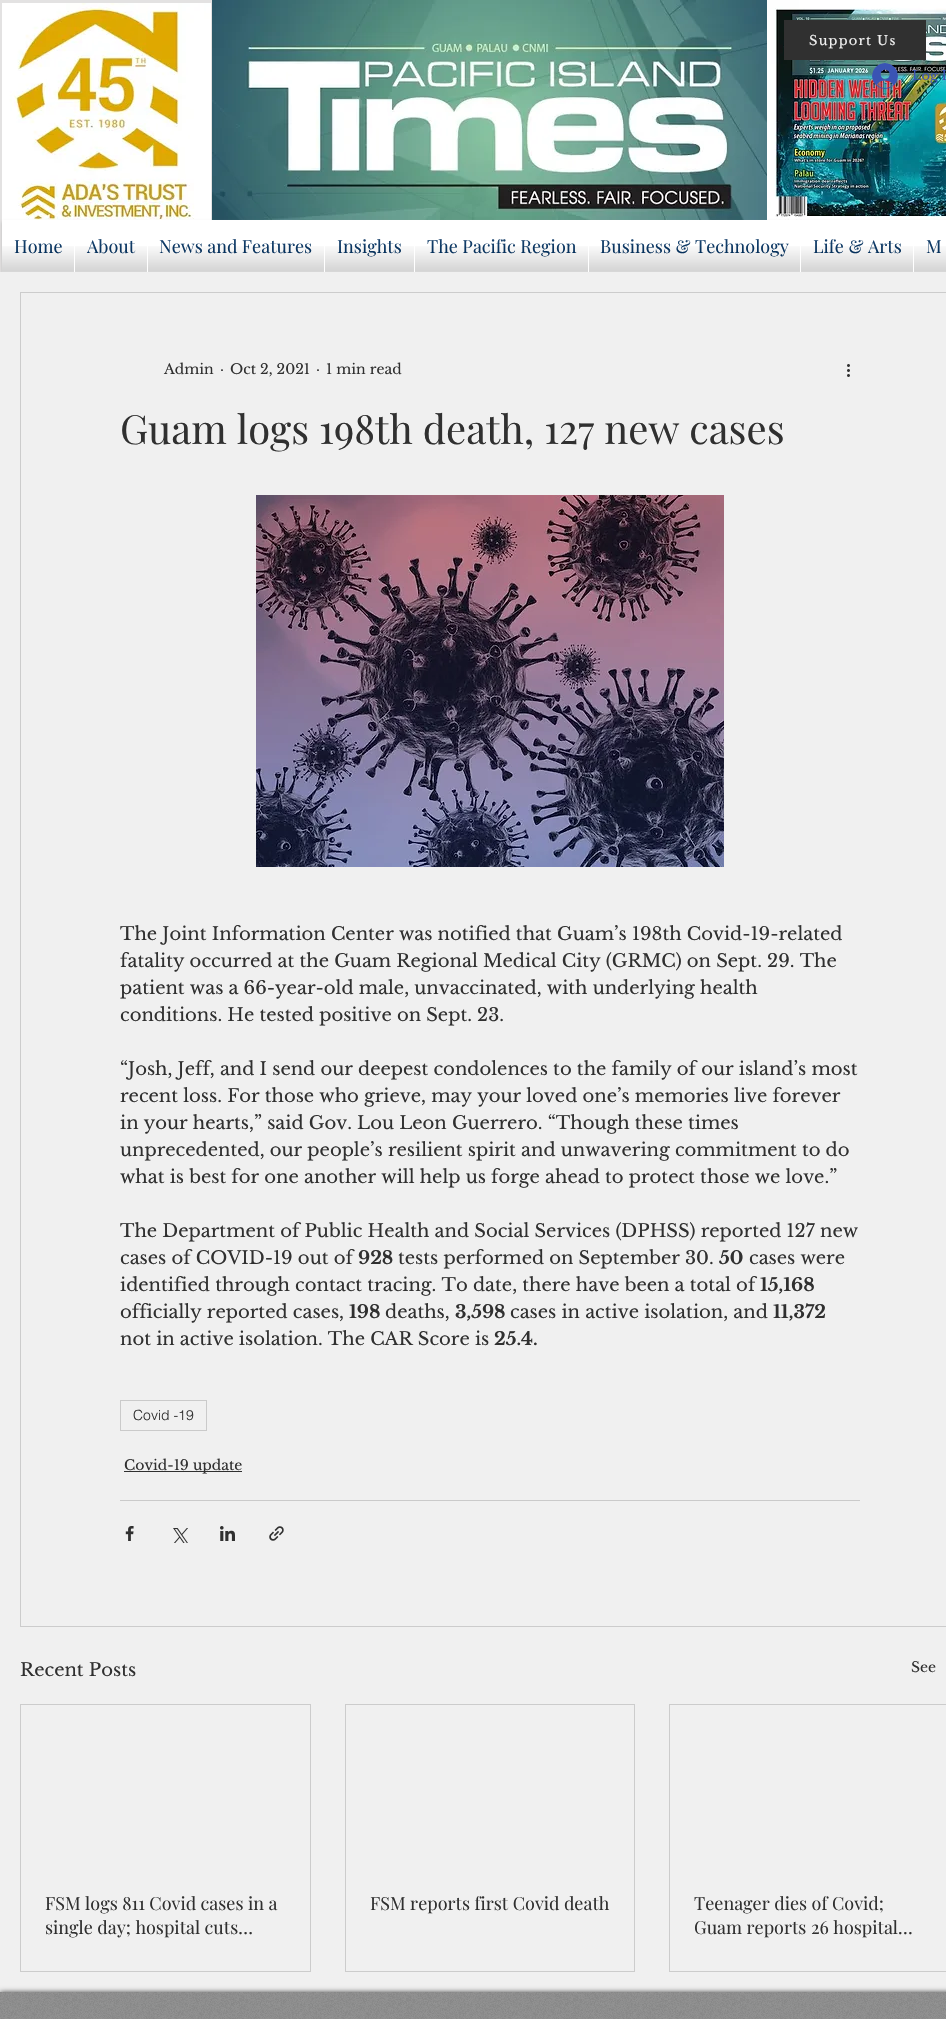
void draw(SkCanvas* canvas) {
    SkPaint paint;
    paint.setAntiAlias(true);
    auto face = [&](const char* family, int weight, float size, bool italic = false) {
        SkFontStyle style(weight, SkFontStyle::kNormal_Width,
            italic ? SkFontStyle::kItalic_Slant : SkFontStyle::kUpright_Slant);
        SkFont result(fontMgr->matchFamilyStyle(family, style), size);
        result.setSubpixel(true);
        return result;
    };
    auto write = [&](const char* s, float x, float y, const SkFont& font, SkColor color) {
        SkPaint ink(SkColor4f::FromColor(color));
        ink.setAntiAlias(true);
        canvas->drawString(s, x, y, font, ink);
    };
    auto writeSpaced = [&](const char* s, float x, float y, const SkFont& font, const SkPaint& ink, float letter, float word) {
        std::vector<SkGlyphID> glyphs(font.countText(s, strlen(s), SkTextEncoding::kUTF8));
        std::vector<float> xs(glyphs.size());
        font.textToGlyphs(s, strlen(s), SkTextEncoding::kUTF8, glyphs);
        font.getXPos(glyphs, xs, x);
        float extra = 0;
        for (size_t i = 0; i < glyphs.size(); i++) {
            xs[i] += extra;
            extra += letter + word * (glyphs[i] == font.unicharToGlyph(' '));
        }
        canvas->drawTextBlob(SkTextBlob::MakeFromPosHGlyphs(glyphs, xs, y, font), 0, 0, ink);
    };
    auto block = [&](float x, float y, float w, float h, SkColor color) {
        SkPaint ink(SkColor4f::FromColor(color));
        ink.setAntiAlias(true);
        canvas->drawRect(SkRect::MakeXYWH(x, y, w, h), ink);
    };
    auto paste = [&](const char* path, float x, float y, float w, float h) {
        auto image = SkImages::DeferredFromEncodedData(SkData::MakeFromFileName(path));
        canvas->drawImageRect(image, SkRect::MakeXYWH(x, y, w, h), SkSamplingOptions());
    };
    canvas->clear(SkColorSetRGB(227, 226, 226));
    paste("pic3.png", 767, 0, 179, 220);
    block(784, 20, 142, 40, SkColorSetRGB(48, 48, 48));
    auto kFont1 = face("Libre Baskerville", 400, 13);
    paint.setColor(SkColorSetRGB(240, 240, 240));
    writeSpaced("Support Us", 809, 45, kFont1, paint, 1.25f, 0);
    paste("pic1.png", 2, 3, 209, 217);
    paste("pic2.png", 212, 0, 555, 220);
    paste("pic4.png", 872, 63, 26, 26);
    write("Log I", 912, 80, kFont1, SkColorSetRGB(58, 84, 180));
    paint.setColor(SkColorSetARGB(153, 162, 158, 158));
    paint.setMaskFilter(SkMaskFilter::MakeBlur(kNormal_SkBlurStyle, 1.5f));
    canvas->drawRect(SkRect::MakeXYWH(2, 222, 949, 52), paint);
    paint.setMaskFilter(nullptr);
    block(2, 220, 944, 52, SK_ColorWHITE);
    auto kFont2 = face("Playfair Display", 400, 18);
    write("Home", 14, 253, kFont2, SkColorSetRGB(0, 46, 93));
    paste("pic5.png", 14, 240, 48, 13);
    paste("pic6.png", 2, 246, 72, 26);
    write("About", 87, 253, kFont2, SkColorSetRGB(0, 46, 93));
    paste("pic7.png", 87, 239, 47, 14);
    paste("pic8.png", 75, 246, 72, 26);
    write("News and Features", 159, 253, kFont2, SkColorSetRGB(0, 46, 93));
    paste("pic9.png", 160, 239, 152, 14);
    paste("pic10.png", 148, 246, 176, 26);
    write("Insights", 337, 253, kFont2, SkColorSetRGB(0, 46, 93));
    paste("pic11.png", 338, 239, 63, 14);
    paste("pic12.png", 325, 246, 89, 26);
    write("The Pacific Region", 427, 253, kFont2, SkColorSetRGB(0, 46, 93));
    paste("pic13.png", 427, 239, 148, 14);
    paste("pic14.png", 415, 246, 173, 26);
    write("Business & Technology", 600, 253, kFont2, SkColorSetRGB(0, 46, 93));
    paste("pic15.png", 601, 239, 187, 14);
    paste("pic16.png", 589, 246, 211, 26);
    write("Life & Arts", 813, 253, kFont2, SkColorSetRGB(0, 46, 93));
    paste("pic17.png", 813, 239, 87, 14);
    paste("pic18.png", 801, 246, 112, 26);
    write("M", 926, 253, kFont2, SkColorSetRGB(0, 46, 93));
    paste("pic19.png", 926, 240, 20, 13);
    paste("pic20.png", 914, 246, 32, 26);
    block(0, 272, 946, 1720, SkColorSetRGB(240, 240, 240));
    paint.setStyle(SkPaint::kStroke_Style);
    paint.setStrokeWidth(1);
    paint.setColor(SkColorSetRGB(204, 204, 204));
    canvas->drawRect(SkRect::MakeXYWH(20.5f, 292.5f, 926, 1334), paint);
    auto kFont3 = face("Libre Baskerville", 400, 14);
    write("Admin", 164, 374, kFont3, SkColorSetRGB(48, 48, 48));
    write("·", 220, 374, kFont3, SkColorSetRGB(48, 48, 48));
    write("Oct 2, 2021", 230, 374, kFont3, SkColorSetRGB(48, 48, 48));
    write("·", 316, 374, kFont3, SkColorSetRGB(48, 48, 48));
    write("1 min read", 326, 374, kFont3, SkColorSetRGB(48, 48, 48));
    paste("pic21.png", 847, 364, 3, 13);
    auto kFont4 = face("Playfair Display", 400, 40);
    write("Guam logs 198th death, 127 new cases", 120, 444, kFont4, SkColorSetRGB(48, 48, 48));
    paste("pic22.png", 256, 495, 468, 372);
    auto kFont5 = face("Libre Baskerville", 400, 18);
    write("The Joint Information Center was notified that Guam’s 198th Covid-19-related", 120, 940, kFont5, SkColorSetRGB(48, 48, 48));
    write("fatality occurred at the Guam Regional Medical City (GRMC) on Sept. 29. The", 120, 967, kFont5, SkColorSetRGB(48, 48, 48));
    write("patient was a 66-year-old male, unvaccinated, with underlying health", 120, 994, kFont5, SkColorSetRGB(48, 48, 48));
    write("conditions. He tested positive on Sept. 23.", 120, 1021, kFont5, SkColorSetRGB(48, 48, 48));
    write("“Josh, Jeff, and I send our deepest condolences to the family of our island’s most", 120, 1075, kFont5, SkColorSetRGB(48, 48, 48));
    write("recent loss. For those who grieve, may your loved one’s memories live forever", 120, 1102, kFont5, SkColorSetRGB(48, 48, 48));
    write("in your hearts,” said Gov. Lou Leon Guerrero. “Though these times", 120, 1129, kFont5, SkColorSetRGB(48, 48, 48));
    write("unprecedented, our people’s resilient spirit and unwavering commitment to do", 120, 1156, kFont5, SkColorSetRGB(48, 48, 48));
    write("what is best for one another will help us forge ahead to protect those we love.”", 120, 1183, kFont5, SkColorSetRGB(48, 48, 48));
    write("The Department of Public Health and Social Services (DPHSS) reported 127", 120, 1237, kFont5, SkColorSetRGB(48, 48, 48));
    write("new", 820, 1237, kFont5, SkColorSetRGB(48, 48, 48));
    write("cases of COVID-19 out of", 120, 1264, kFont5, SkColorSetRGB(48, 48, 48));
    auto kFont6 = face("Libre Baskerville", 700, 18);
    write("928", 358, 1264, kFont6, SkColorSetRGB(48, 48, 48));
    write("tests performed on September 30.", 398, 1264, kFont5, SkColorSetRGB(48, 48, 48));
    write("50", 719, 1264, kFont6, SkColorSetRGB(48, 48, 48));
    write("cases were", 749, 1264, kFont5, SkColorSetRGB(48, 48, 48));
    write("identified through contact tracing. To date, there have been a total of", 120, 1291, kFont5, SkColorSetRGB(48, 48, 48));
    write("15,168", 760, 1291, kFont6, SkColorSetRGB(48, 48, 48));
    write("officially reported cases,", 120, 1318, kFont5, SkColorSetRGB(48, 48, 48));
    write("198", 349, 1318, kFont6, SkColorSetRGB(48, 48, 48));
    write("deaths,", 385, 1318, kFont5, SkColorSetRGB(48, 48, 48));
    write("3,598", 455, 1318, kFont6, SkColorSetRGB(48, 48, 48));
    write("cases in active isolation, and", 510, 1318, kFont5, SkColorSetRGB(48, 48, 48));
    write("11,372", 773, 1318, kFont6, SkColorSetRGB(48, 48, 48));
    write("not in active isolation. The CAR Score is", 120, 1345, kFont5, SkColorSetRGB(48, 48, 48));
    write("25.4.", 494, 1345, kFont6, SkColorSetRGB(48, 48, 48));
    paint.setColor(SkColorSetRGB(202, 202, 202));
    canvas->drawRect(SkRect::MakeXYWH(120.5f, 1400.5f, 86, 30), paint);
    auto kFont7 = face("helvetica", 300, 14);
    write("Covid -19", 133, 1420, kFont7, SkColorSetRGB(48, 48, 48));
    block(124, 1471, 118, 1, SkColorSetRGB(48, 48, 48));
    write("Covid-19 update", 124, 1470, kFont3, SkColorSetRGB(48, 48, 48));
    block(120, 1500, 740, 1, SkColorSetRGB(202, 202, 202));
    paste("pic23.png", 125, 1526, 9, 15);
    paste("pic24.png", 173, 1528, 15, 15);
    paste("pic25.png", 220, 1526, 15, 15);
    paste("pic26.png", 269, 1526, 15, 15);
    write("Recent Posts", 20, 1676, kFont5, SkColorSetRGB(48, 48, 48));
    write("See", 911, 1672, kFont3, SkColorSetRGB(48, 48, 48));
    paint.setColor(SkColorSetRGB(204, 204, 204));
    canvas->drawRect(SkRect::MakeXYWH(20.5f, 1704.5f, 290, 267), paint);
    write("FSM logs 811 Covid cases in a", 45, 1910, kFont2, SkColorSetRGB(48, 48, 48));
    write("single day; hospital cuts…", 45, 1934, kFont2, SkColorSetRGB(48, 48, 48));
    canvas->drawRect(SkRect::MakeXYWH(345.5f, 1704.5f, 289, 267), paint);
    write("FSM reports first Covid death", 370, 1910, kFont2, SkColorSetRGB(48, 48, 48));
    canvas->drawRect(SkRect::MakeXYWH(669.5f, 1704.5f, 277, 267), paint);
    write("Teenager dies of Covid;", 694, 1910, kFont2, SkColorSetRGB(48, 48, 48));
    write("Guam reports 26 hospital…", 694, 1934, kFont2, SkColorSetRGB(48, 48, 48));
    paint.setStyle(SkPaint::kFill_Style);
    paint.setColor(SkColorSetARGB(179, 0, 0, 0));
    paint.setMaskFilter(SkMaskFilter::MakeBlur(kNormal_SkBlurStyle, 2.5f));
    canvas->drawRect(SkRect::MakeXYWH(0, 1992, 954, 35), paint);
    paint.setMaskFilter(nullptr);
    block(0, 1992, 946, 27, SkColorSetRGB(144, 144, 144));
    paste("pic27.png", 0, 1992, 946, 27);
}
